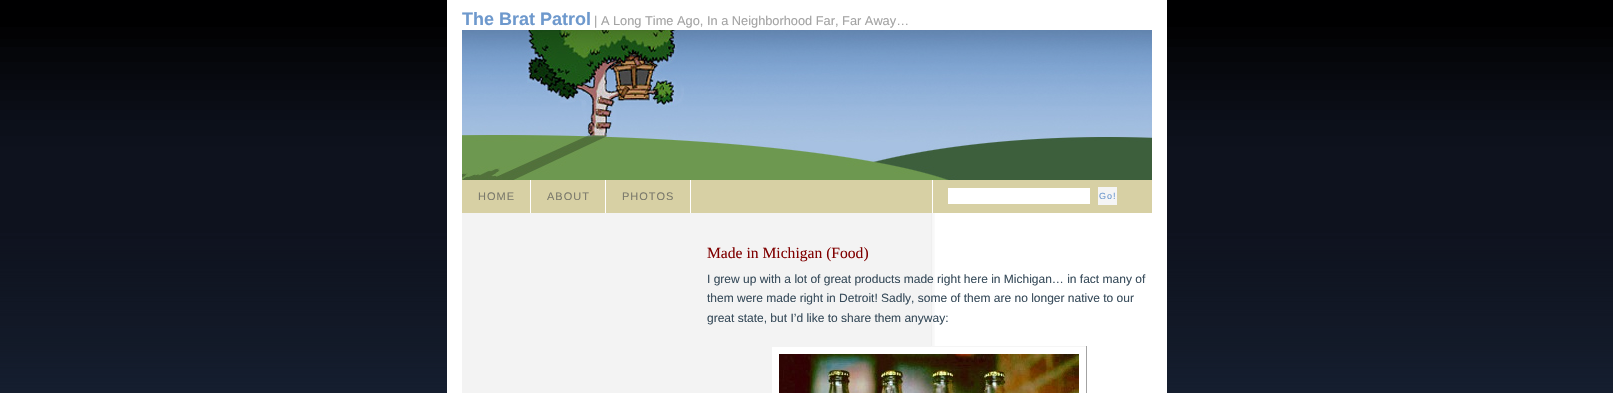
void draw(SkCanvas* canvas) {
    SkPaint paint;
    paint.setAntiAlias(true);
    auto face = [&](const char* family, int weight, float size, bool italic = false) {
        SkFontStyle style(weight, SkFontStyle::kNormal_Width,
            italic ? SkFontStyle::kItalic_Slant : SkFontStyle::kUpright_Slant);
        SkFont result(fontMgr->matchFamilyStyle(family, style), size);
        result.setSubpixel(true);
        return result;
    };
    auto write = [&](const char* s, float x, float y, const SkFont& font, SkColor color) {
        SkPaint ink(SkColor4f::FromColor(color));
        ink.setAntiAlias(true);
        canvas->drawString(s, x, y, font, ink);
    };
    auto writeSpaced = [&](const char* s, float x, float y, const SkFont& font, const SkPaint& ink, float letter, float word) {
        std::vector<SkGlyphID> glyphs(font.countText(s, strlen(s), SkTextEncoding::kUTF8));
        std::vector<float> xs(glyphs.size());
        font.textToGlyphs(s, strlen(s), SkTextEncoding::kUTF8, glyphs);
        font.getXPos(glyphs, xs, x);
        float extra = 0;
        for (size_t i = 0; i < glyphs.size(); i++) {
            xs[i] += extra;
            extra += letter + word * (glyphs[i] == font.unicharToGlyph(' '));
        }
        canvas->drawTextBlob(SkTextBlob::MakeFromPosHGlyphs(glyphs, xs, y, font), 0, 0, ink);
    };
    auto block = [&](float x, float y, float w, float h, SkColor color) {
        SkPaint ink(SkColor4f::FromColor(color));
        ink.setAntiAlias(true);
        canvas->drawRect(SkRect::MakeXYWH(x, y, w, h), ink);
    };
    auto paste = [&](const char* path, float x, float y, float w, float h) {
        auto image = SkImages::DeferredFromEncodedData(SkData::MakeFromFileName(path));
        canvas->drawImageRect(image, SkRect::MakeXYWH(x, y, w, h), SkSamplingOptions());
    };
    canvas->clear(SK_ColorWHITE);
    paste("pic1.png", 0, 0, 1613, 393);
    block(447, 0, 720, 393, SK_ColorWHITE);
    paste("pic2.png", 462, 213, 473, 180);
    auto kFont1 = face("Liberation Sans", 700, 18);
    write("The Brat Patrol", 462, 25, kFont1, SkColorSetRGB(110, 153, 205));
    auto kFont2 = face("Liberation Sans", 400, 12.8f);
    write("| A Long Time Ago, In a Neighborhood Far, Far Away…", 594, 25, kFont2, SkColorSetRGB(163, 163, 163));
    paste("pic3.png", 462, 30, 690, 150);
    block(462, 180, 690, 33, SkColorSetRGB(215, 208, 164));
    block(530, 180, 1, 33, SK_ColorWHITE);
    auto kFont3 = face("Liberation Sans", 400, 11);
    paint.setColor(SkColorSetRGB(122, 121, 107));
    writeSpaced("HOME", 478, 200, kFont3, paint, 1, 0);
    block(605, 180, 1, 33, SK_ColorWHITE);
    writeSpaced("ABOUT", 547, 200, kFont3, paint, 1, 0);
    block(690, 180, 1, 33, SK_ColorWHITE);
    writeSpaced("PHOTOS", 622, 200, kFont3, paint, 1, 0);
    block(932, 180, 1, 33, SK_ColorWHITE);
    block(948, 188, 142, 16, SK_ColorWHITE);
    block(1098, 187, 19, 18, SkColorSetRGB(245, 245, 245));
    auto kFont4 = face("Liberation Sans", 400, 9);
    paint.setColor(SkColorSetRGB(110, 153, 205));
    writeSpaced("Go!", 1099, 199, kFont4, paint, 1, 0);
    auto kFont5 = face("Liberation Serif", 400, 15.6f);
    write("Made in Michigan (Food)", 707, 258, kFont5, SkColorSetRGB(128, 0, 0));
    auto kFont6 = face("Liberation Sans", 400, 12);
    write("I grew up with a lot of great products made right here in Michigan… in fact many of", 707, 283, kFont6, SkColorSetRGB(56, 76, 91));
    write("them were made right in Detroit! Sadly, some of them are no longer native to our", 707, 302, kFont6, SkColorSetRGB(56, 76, 91));
    write("great state, but I’d like to share them anyway:", 707, 322, kFont6, SkColorSetRGB(56, 76, 91));
    block(931, 346, 156, 1, SkColorSetRGB(245, 245, 245));
    block(772, 347, 163, 46, SK_ColorWHITE);
    block(1086, 346, 1, 47, SkColorSetRGB(163, 163, 163));
    paste("pic4.png", 779, 354, 300, 39);
}
